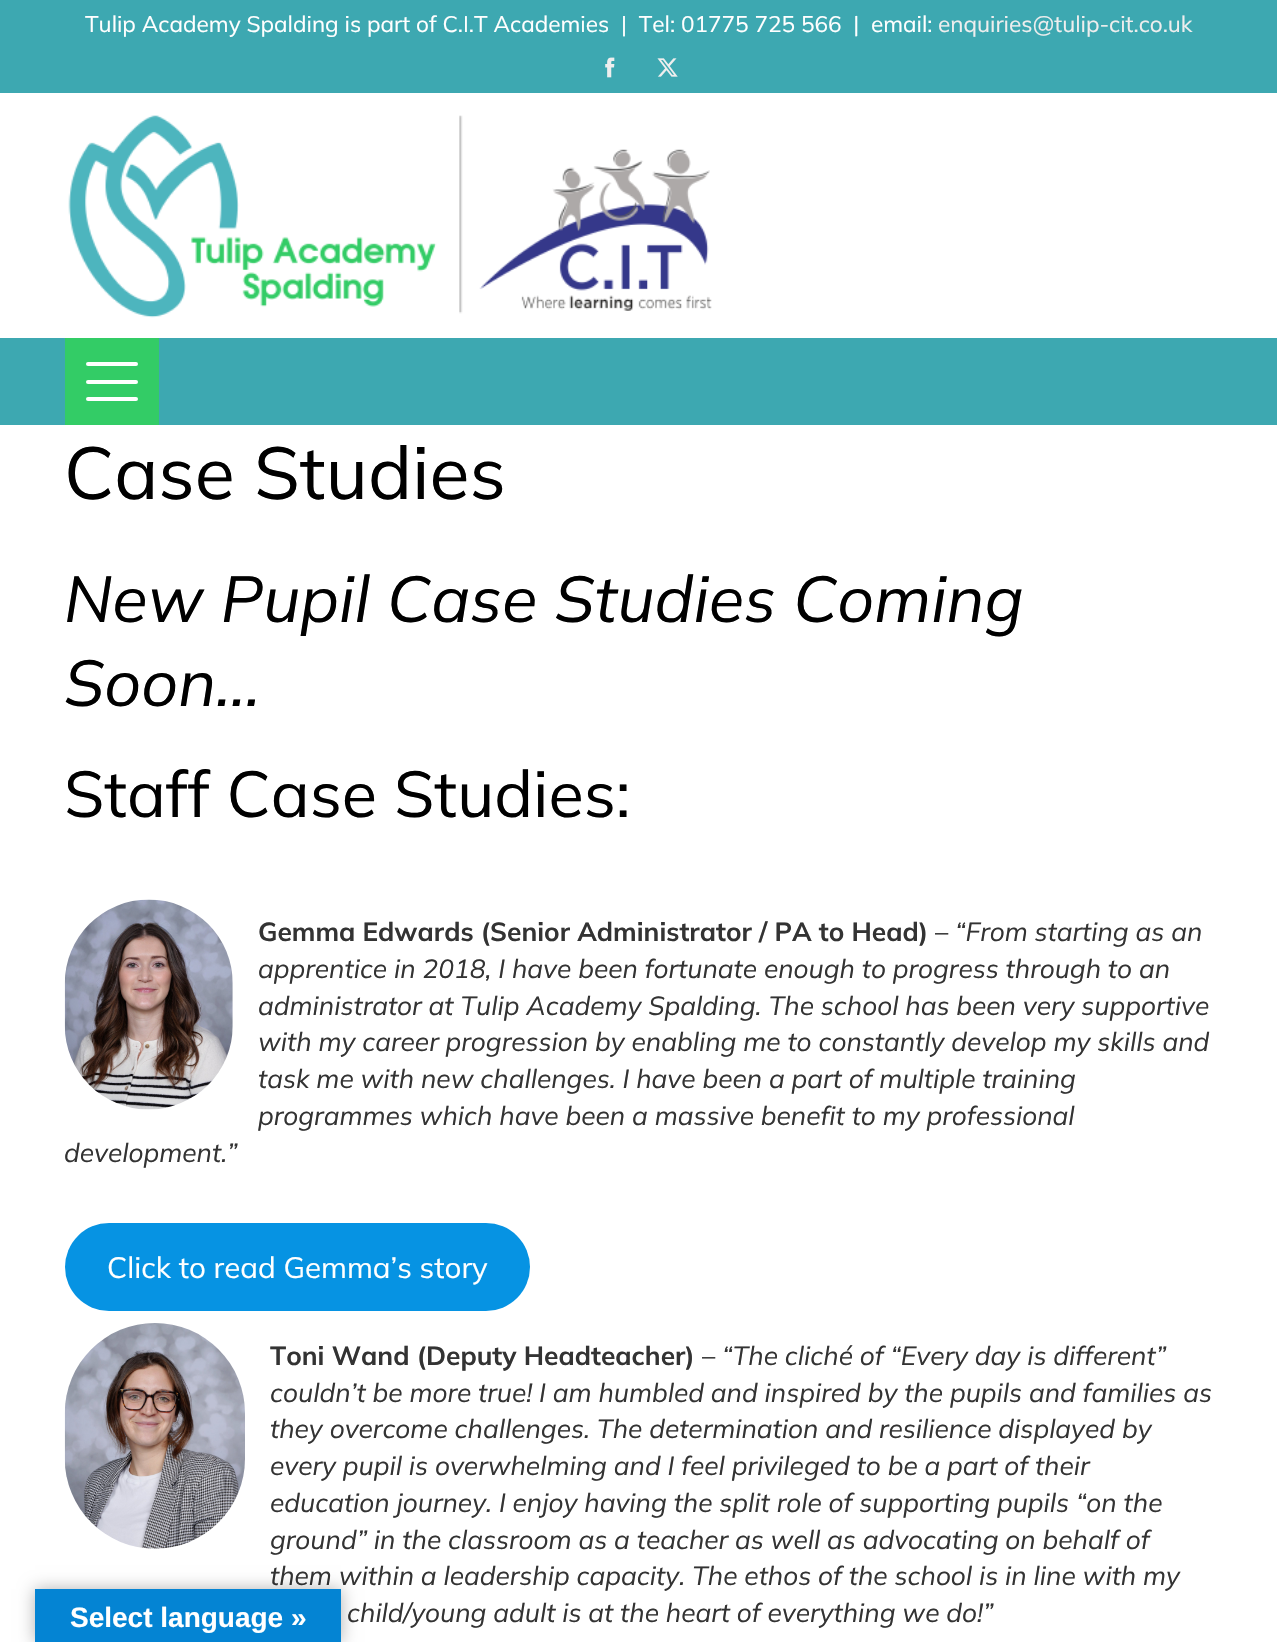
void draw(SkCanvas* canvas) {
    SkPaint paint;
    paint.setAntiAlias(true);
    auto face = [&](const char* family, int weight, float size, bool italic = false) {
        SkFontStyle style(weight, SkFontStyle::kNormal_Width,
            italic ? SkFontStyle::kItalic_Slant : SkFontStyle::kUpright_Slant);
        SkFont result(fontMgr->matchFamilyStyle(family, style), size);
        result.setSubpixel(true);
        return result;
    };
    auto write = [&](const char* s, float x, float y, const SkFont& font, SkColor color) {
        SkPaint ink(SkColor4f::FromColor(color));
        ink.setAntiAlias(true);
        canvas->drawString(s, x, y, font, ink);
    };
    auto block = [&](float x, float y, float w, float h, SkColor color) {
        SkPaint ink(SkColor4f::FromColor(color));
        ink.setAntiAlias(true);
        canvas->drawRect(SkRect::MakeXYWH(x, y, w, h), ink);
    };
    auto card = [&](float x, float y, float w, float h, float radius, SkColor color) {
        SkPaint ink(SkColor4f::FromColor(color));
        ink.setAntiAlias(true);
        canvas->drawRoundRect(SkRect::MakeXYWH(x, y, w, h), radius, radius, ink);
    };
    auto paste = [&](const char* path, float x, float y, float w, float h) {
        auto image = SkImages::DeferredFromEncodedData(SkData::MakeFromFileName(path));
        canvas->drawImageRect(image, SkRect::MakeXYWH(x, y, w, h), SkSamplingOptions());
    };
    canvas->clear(SK_ColorWHITE);
    block(0, 0, 1277, 93, SkColorSetRGB(61, 168, 177));
    auto kFont1 = face("Mulish", 400, 22.55f);
    write("Tulip Academy Spalding is part of C.I.T Academies  |  Tel: 01775 725 566  |  email:", 85, 32, kFont1, SK_ColorWHITE);
    write("enquiries@tulip-cit.co.uk", 938, 32, kFont1, SkColorSetRGB(238, 238, 238));
    paste("pic1.png", 605, 57, 10, 21);
    paste("pic2.png", 657, 58, 21, 19);
    paste("pic3.png", 68, 115, 644, 203);
    block(0, 338, 1277, 87, SkColorSetRGB(61, 168, 177));
    block(65, 338, 94, 87, SkColorSetRGB(51, 204, 102));
    card(86, 362, 52, 4, 2, SK_ColorWHITE);
    card(86, 380, 52, 4, 2, SK_ColorWHITE);
    card(86, 397, 52, 4, 2, SK_ColorWHITE);
    auto kFont2 = face("Mulish", 400, 73.5f);
    write("Case Studies", 64, 499, kFont2, SK_ColorBLACK);
    auto kFont3 = face("Mulish", 400, 64.75f, true);
    write("New Pupil Case Studies Coming", 64, 622, kFont3, SK_ColorBLACK);
    write("Soon…", 64, 706, kFont3, SK_ColorBLACK);
    auto kFont4 = face("Mulish", 400, 64.75f);
    write("Staff Case Studies:", 64, 817, kFont4, SK_ColorBLACK);
    paste("pic4.png", 64, 899, 169, 211);
    auto kFont5 = face("Mulish", 700, 26.25f);
    write("Gemma Edwards (Senior Administrator / PA to Head)", 258, 941, kFont5, SkColorSetRGB(51, 51, 51));
    auto kFont6 = face("Mulish", 400, 26.25f);
    write("–", 935, 941, kFont6, SkColorSetRGB(51, 51, 51));
    auto kFont7 = face("Mulish", 400, 26.25f, true);
    write("“From starting as an", 955, 941, kFont7, SkColorSetRGB(51, 51, 51));
    write("apprentice in 2018, I have been fortunate enough to progress through to an", 258, 978, kFont7, SkColorSetRGB(51, 51, 51));
    write("administrator at Tulip Academy Spalding. The school has been very supportive", 258, 1015, kFont7, SkColorSetRGB(51, 51, 51));
    write("with my career progression by enabling me to constantly develop my skills and", 258, 1051, kFont7, SkColorSetRGB(51, 51, 51));
    write("task me with new challenges. I have been a part of multiple training", 258, 1088, kFont7, SkColorSetRGB(51, 51, 51));
    write("programmes which have been a massive benefit to my professional", 258, 1125, kFont7, SkColorSetRGB(51, 51, 51));
    write("development.”", 64, 1162, kFont7, SkColorSetRGB(51, 51, 51));
    card(65, 1223, 465, 88, 44, SkColorSetRGB(6, 147, 227));
    auto kFont8 = face("Mulish", 400, 29.5f);
    write("Click to read Gemma’s story", 107, 1278, kFont8, SK_ColorWHITE);
    paste("pic5.png", 64, 1323, 181, 226);
    write("Toni Wand (Deputy Headteacher)", 270, 1365, kFont5, SkColorSetRGB(51, 51, 51));
    write("–", 702, 1365, kFont6, SkColorSetRGB(51, 51, 51));
    write("“The cliché of “Every day is different”", 722, 1365, kFont7, SkColorSetRGB(51, 51, 51));
    write("couldn’t be more true! I am humbled and inspired by the pupils and families as", 270, 1402, kFont7, SkColorSetRGB(51, 51, 51));
    write("they overcome challenges. The determination and resilience displayed by", 270, 1438, kFont7, SkColorSetRGB(51, 51, 51));
    write("every pupil is overwhelming and I feel privileged to be a part of their", 270, 1475, kFont7, SkColorSetRGB(51, 51, 51));
    write("education journey. I enjoy having the split role of supporting pupils “on the", 270, 1512, kFont7, SkColorSetRGB(51, 51, 51));
    write("ground” in the classroom as a teacher as well as advocating on behalf of", 270, 1549, kFont7, SkColorSetRGB(51, 51, 51));
    write("them within a leadership capacity. The ethos of the school is in line with my", 270, 1585, kFont7, SkColorSetRGB(51, 51, 51));
    write("child/young adult is at the heart of everything we do!”", 347, 1622, kFont7, SkColorSetRGB(51, 51, 51));
    paint.setColor(SkColorSetARGB(77, 0, 0, 0));
    paint.setMaskFilter(SkMaskFilter::MakeBlur(kNormal_SkBlurStyle, 8));
    canvas->drawRect(SkRect::MakeXYWH(35, 1589, 306, 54), paint);
    paint.setMaskFilter(nullptr);
    block(35, 1589, 306, 53, SkColorSetRGB(4, 132, 211));
    auto kFont9 = face("Liberation Sans", 700, 28);
    write("Select language »", 70, 1627, kFont9, SK_ColorWHITE);
}
